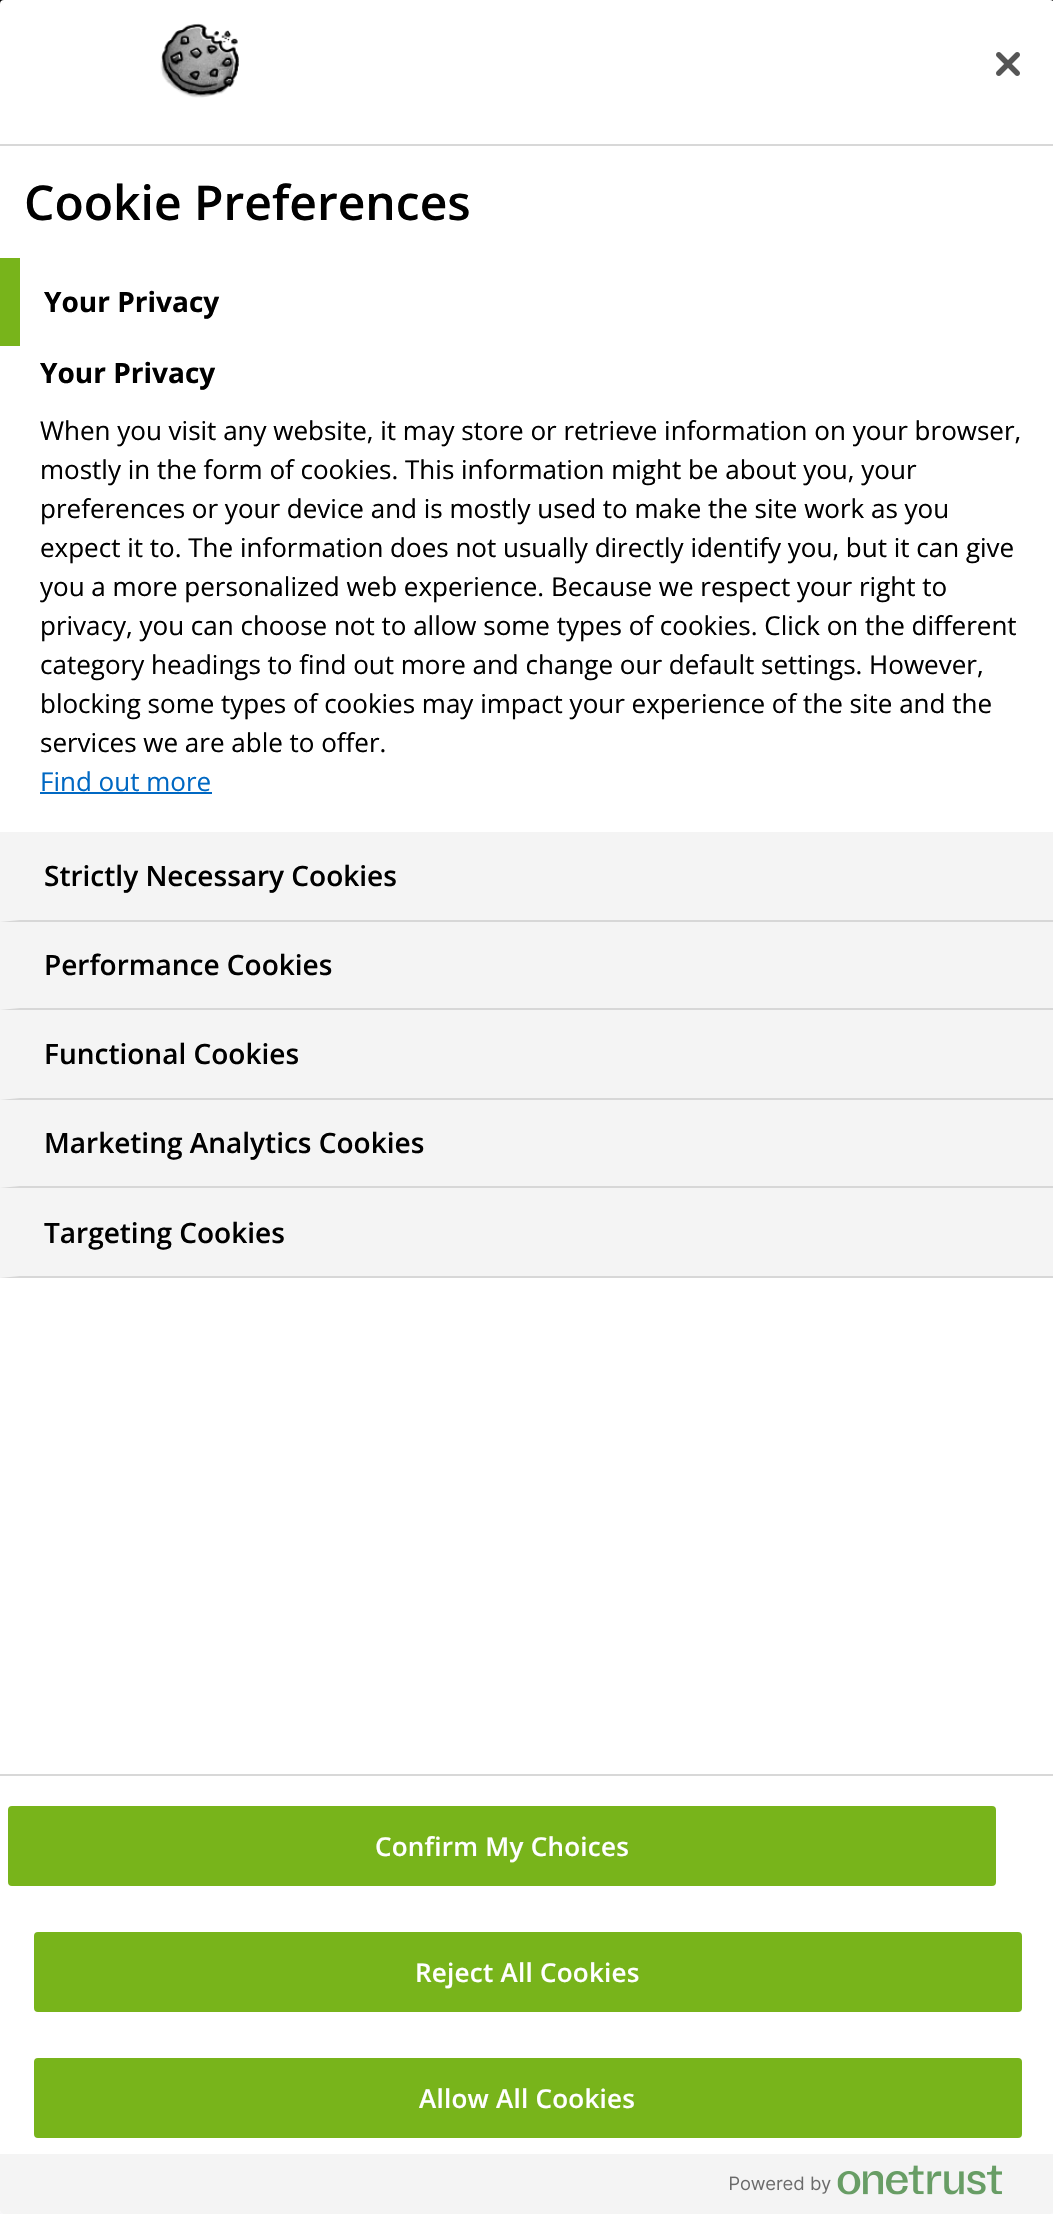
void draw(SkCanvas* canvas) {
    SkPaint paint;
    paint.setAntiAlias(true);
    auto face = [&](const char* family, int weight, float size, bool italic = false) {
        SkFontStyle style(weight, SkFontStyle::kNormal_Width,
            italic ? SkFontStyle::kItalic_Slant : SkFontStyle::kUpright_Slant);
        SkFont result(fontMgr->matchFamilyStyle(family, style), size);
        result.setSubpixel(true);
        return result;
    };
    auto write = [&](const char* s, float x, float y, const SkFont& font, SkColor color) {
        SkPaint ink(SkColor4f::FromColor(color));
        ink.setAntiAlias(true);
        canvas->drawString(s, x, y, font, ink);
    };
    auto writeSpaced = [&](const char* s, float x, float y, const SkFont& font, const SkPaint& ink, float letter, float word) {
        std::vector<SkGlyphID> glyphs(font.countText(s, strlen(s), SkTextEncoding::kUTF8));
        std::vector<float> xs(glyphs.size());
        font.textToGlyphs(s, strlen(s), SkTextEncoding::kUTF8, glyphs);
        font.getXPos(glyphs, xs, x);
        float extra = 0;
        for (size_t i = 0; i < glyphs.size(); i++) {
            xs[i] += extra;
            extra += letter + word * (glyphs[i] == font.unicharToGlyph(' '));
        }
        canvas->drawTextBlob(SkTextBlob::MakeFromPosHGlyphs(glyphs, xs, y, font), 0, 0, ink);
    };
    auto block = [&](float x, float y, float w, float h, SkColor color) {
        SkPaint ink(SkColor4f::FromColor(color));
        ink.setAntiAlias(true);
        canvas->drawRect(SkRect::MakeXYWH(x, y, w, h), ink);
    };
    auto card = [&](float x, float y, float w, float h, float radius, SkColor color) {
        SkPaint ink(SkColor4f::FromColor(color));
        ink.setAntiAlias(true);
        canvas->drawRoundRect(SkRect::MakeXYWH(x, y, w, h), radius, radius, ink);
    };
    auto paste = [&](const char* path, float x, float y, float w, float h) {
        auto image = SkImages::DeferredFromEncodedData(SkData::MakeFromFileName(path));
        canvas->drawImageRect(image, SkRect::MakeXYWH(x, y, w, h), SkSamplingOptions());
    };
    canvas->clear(SK_ColorWHITE);
    block(0, 0, 1053, 4, SK_ColorBLACK);
    paint.setColor(SkColorSetARGB(26, 50, 50, 93));
    paint.setMaskFilter(SkMaskFilter::MakeBlur(kNormal_SkBlurStyle, 14));
    canvas->drawRoundRect(SkRect::MakeXYWH(0, 14, 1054, 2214), 4, 4, paint);
    paint.setMaskFilter(nullptr);
    card(0, 0, 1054, 2214, 4, SK_ColorWHITE);
    block(0, 144, 1053, 2, SkColorSetRGB(216, 216, 216));
    paste("pic1.png", 160, 23, 79, 75);
    paste("pic2.png", 996, 52, 24, 24);
    auto kFont1 = face("Open Sans", 600, 48);
    write("Cookie Preferences", 24, 220, kFont1, SK_ColorBLACK);
    block(0, 258, 20, 88, SkColorSetRGB(120, 180, 27));
    auto kFont2 = face("Open Sans", 700, 28);
    write("Your Privacy", 44, 312, kFont2, SK_ColorBLACK);
    write("Your Privacy", 40, 383, kFont2, SK_ColorBLACK);
    auto kFont3 = face("Open Sans", 400, 26);
    write("When you visit any website, it may store or retrieve information on your browser,", 40, 440, kFont3, SK_ColorBLACK);
    write("mostly in the form of cookies. This information might be about you, your", 40, 479, kFont3, SK_ColorBLACK);
    write("preferences or your device and is mostly used to make the site work as you", 40, 518, kFont3, SK_ColorBLACK);
    write("expect it to. The information does not usually directly identify you, but it can give", 40, 557, kFont3, SK_ColorBLACK);
    write("you a more personalized web experience. Because we respect your right to", 40, 596, kFont3, SK_ColorBLACK);
    write("privacy, you can choose not to allow some types of cookies. Click on the different", 40, 635, kFont3, SK_ColorBLACK);
    write("category headings to find out more and change our default settings. However,", 40, 674, kFont3, SK_ColorBLACK);
    write("blocking some types of cookies may impact your experience of the site and the", 40, 713, kFont3, SK_ColorBLACK);
    write("services we are able to offer.", 40, 752, kFont3, SK_ColorBLACK);
    write("Find out more", 40, 791, kFont3, SkColorSetRGB(0, 104, 195));
    block(40, 792, 172, 2, SkColorSetRGB(0, 104, 195));
    block(0, 832, 1053, 446, SkColorSetRGB(244, 244, 244));
    paint.setColor(SkColorSetRGB(215, 215, 215));
    canvas->drawPath(SkPathBuilder().moveTo(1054, 922).lineTo(0, 922).lineTo(20, 920).lineTo(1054, 920).close().detach(), paint);
    auto kFont4 = face("Open Sans", 600, 28);
    write("Strictly Necessary Cookies", 44, 886, kFont4, SK_ColorBLACK);
    canvas->drawPath(SkPathBuilder().moveTo(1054, 1010).lineTo(0, 1010).lineTo(20, 1008).lineTo(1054, 1008).close().detach(), paint);
    write("Performance Cookies", 44, 975, kFont4, SK_ColorBLACK);
    canvas->drawPath(SkPathBuilder().moveTo(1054, 1100).lineTo(0, 1100).lineTo(20, 1098).lineTo(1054, 1098).close().detach(), paint);
    write("Functional Cookies", 44, 1064, kFont4, SK_ColorBLACK);
    canvas->drawPath(SkPathBuilder().moveTo(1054, 1188).lineTo(0, 1188).lineTo(20, 1186).lineTo(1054, 1186).close().detach(), paint);
    write("Marketing Analytics Cookies", 44, 1153, kFont4, SK_ColorBLACK);
    canvas->drawPath(SkPathBuilder().moveTo(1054, 1278).lineTo(0, 1278).lineTo(20, 1276).lineTo(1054, 1276).close().detach(), paint);
    write("Targeting Cookies", 44, 1243, kFont4, SK_ColorBLACK);
    block(0, 1774, 1053, 2, SkColorSetRGB(216, 216, 216));
    paint.setColor(SkColorSetRGB(120, 180, 27));
    canvas->drawRoundRect(SkRect::MakeXYWH(9, 1807, 986, 78), 3, 3, paint);
    paint.setStyle(SkPaint::kStroke_Style);
    paint.setStrokeWidth(2);
    canvas->drawRoundRect(SkRect::MakeXYWH(9, 1807, 986, 78), 3, 3, paint);
    auto kFont5 = face("Open Sans", 600, 26);
    paint.setStyle(SkPaint::kFill_Style);
    paint.setColor(SK_ColorWHITE);
    writeSpaced("Confirm My Choices", 375, 1856, kFont5, paint, 0.25f, 0);
    paint.setColor(SkColorSetRGB(120, 180, 27));
    canvas->drawRoundRect(SkRect::MakeXYWH(35, 1933, 986, 78), 3, 3, paint);
    paint.setStyle(SkPaint::kStroke_Style);
    canvas->drawRoundRect(SkRect::MakeXYWH(35, 1933, 986, 78), 3, 3, paint);
    paint.setStyle(SkPaint::kFill_Style);
    paint.setColor(SK_ColorWHITE);
    writeSpaced("Reject All Cookies", 415, 1982, kFont5, paint, 0.25f, 0);
    paint.setColor(SkColorSetRGB(120, 180, 27));
    canvas->drawRoundRect(SkRect::MakeXYWH(35, 2059, 986, 78), 3, 3, paint);
    paint.setStyle(SkPaint::kStroke_Style);
    canvas->drawRoundRect(SkRect::MakeXYWH(35, 2059, 986, 78), 3, 3, paint);
    paint.setStyle(SkPaint::kFill_Style);
    paint.setColor(SK_ColorWHITE);
    writeSpaced("Allow All Cookies", 419, 2108, kFont5, paint, 0.25f, 0);
    paint.setColor(SkColorSetRGB(244, 244, 244));
    canvas->drawPath(SkPathBuilder().moveTo(0, 2154).lineTo(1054, 2154).lineTo(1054, 2210).cubicTo(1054, 2212, 1052, 2214, 1050, 2214).lineTo(4, 2214).cubicTo(2, 2214, 0, 2212, 0, 2210).close().detach(), paint);
    paste("pic3.png", 730, 2165, 272, 30);
}
